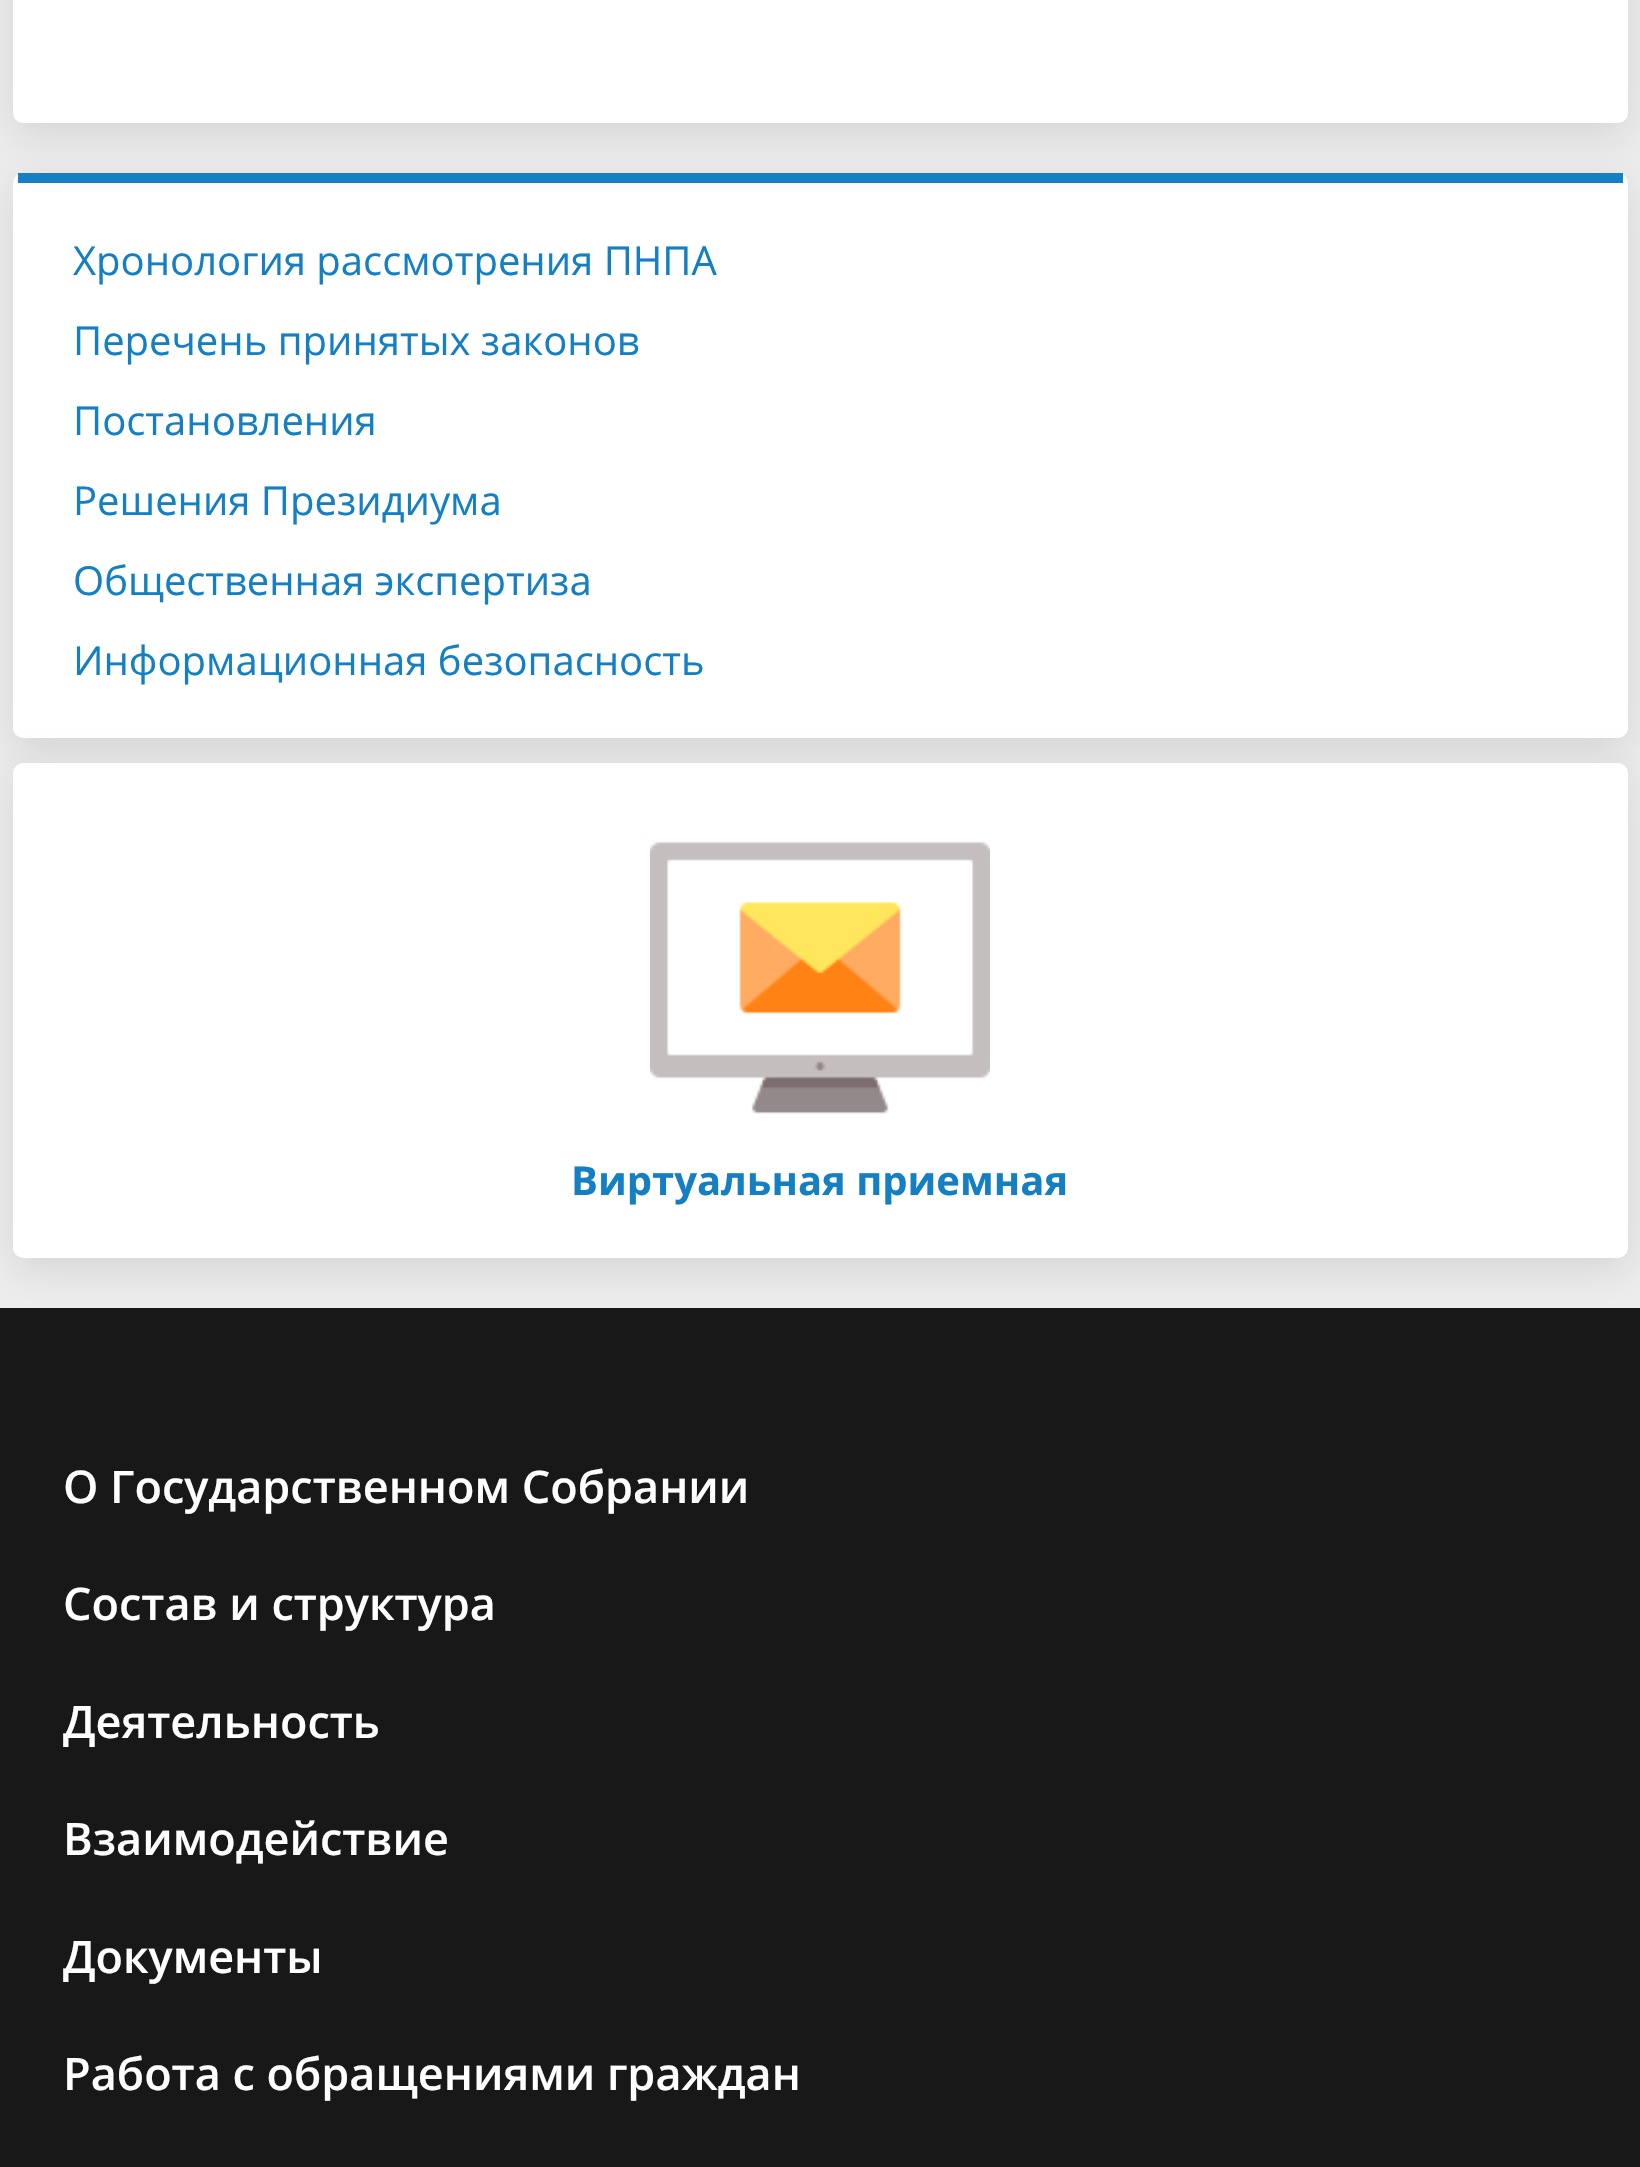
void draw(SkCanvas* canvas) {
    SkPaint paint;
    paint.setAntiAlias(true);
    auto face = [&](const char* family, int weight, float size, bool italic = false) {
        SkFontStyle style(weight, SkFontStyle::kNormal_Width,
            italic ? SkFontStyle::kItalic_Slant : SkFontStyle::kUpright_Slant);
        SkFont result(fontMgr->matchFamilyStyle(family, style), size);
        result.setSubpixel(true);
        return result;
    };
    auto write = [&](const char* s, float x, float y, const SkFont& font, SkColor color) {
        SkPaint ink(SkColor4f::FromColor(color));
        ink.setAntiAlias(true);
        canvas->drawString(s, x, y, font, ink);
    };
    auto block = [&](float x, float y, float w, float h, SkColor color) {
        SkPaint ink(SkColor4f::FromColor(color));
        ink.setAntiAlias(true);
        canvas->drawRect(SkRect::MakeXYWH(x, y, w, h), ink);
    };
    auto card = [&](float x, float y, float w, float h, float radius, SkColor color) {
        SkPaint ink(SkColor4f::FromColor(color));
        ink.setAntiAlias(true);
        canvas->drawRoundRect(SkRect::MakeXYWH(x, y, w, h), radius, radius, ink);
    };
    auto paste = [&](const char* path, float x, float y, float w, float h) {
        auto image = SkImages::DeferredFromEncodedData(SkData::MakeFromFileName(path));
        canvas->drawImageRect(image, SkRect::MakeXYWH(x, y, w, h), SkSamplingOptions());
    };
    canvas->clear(SkColorSetRGB(237, 237, 237));
    paint.setColor(SkColorSetARGB(26, 0, 0, 0));
    paint.setMaskFilter(SkMaskFilter::MakeBlur(kNormal_SkBlurStyle, 19));
    canvas->drawRoundRect(SkRect::MakeXYWH(13, -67, 1615, 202), 10, 10, paint);
    paint.setMaskFilter(nullptr);
    card(13, -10, 1615, 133, 10, SK_ColorWHITE);
    paint.setMaskFilter(SkMaskFilter::MakeBlur(kNormal_SkBlurStyle, 19));
    canvas->drawRoundRect(SkRect::MakeXYWH(13, 185, 1615, 565), 10, 10, paint);
    paint.setMaskFilter(nullptr);
    card(13, 173, 1615, 565, 10, SK_ColorWHITE);
    block(18, 173, 1605, 10, SkColorSetRGB(21, 127, 196));
    auto kFont1 = face("Open Sans", 400, 40);
    write("Хронология рассмотрения ПНПА", 73, 275, kFont1, SkColorSetRGB(21, 127, 196));
    write("Перечень принятых законов", 73, 355, kFont1, SkColorSetRGB(21, 127, 196));
    write("Постановления", 73, 435, kFont1, SkColorSetRGB(21, 127, 196));
    write("Решения Президиума", 73, 515, kFont1, SkColorSetRGB(21, 127, 196));
    write("Общественная экспертиза", 73, 595, kFont1, SkColorSetRGB(21, 127, 196));
    write("Информационная безопасность", 73, 675, kFont1, SkColorSetRGB(21, 127, 196));
    block(0, 1308, 1640, 859, SkColorSetRGB(24, 24, 24));
    paint.setMaskFilter(SkMaskFilter::MakeBlur(kNormal_SkBlurStyle, 19));
    canvas->drawRoundRect(SkRect::MakeXYWH(13, 775, 1615, 495), 10, 10, paint);
    paint.setMaskFilter(nullptr);
    card(13, 763, 1615, 495, 10, SK_ColorWHITE);
    paste("pic1.png", 650, 841, 340, 273);
    auto kFont2 = face("Open Sans", 700, 40);
    write("Виртуальная приемная", 571, 1195, kFont2, SkColorSetRGB(21, 127, 196));
    auto kFont3 = face("Open Sans", 600, 45);
    write("О Государственном Cобрании", 63, 1503, kFont3, SK_ColorWHITE);
    write("Состав и структура", 63, 1620, kFont3, SK_ColorWHITE);
    write("Деятельность", 63, 1738, kFont3, SK_ColorWHITE);
    write("Взаимодействие", 63, 1855, kFont3, SK_ColorWHITE);
    write("Документы", 63, 1973, kFont3, SK_ColorWHITE);
    write("Работа с обращениями граждан", 63, 2090, kFont3, SK_ColorWHITE);
}
